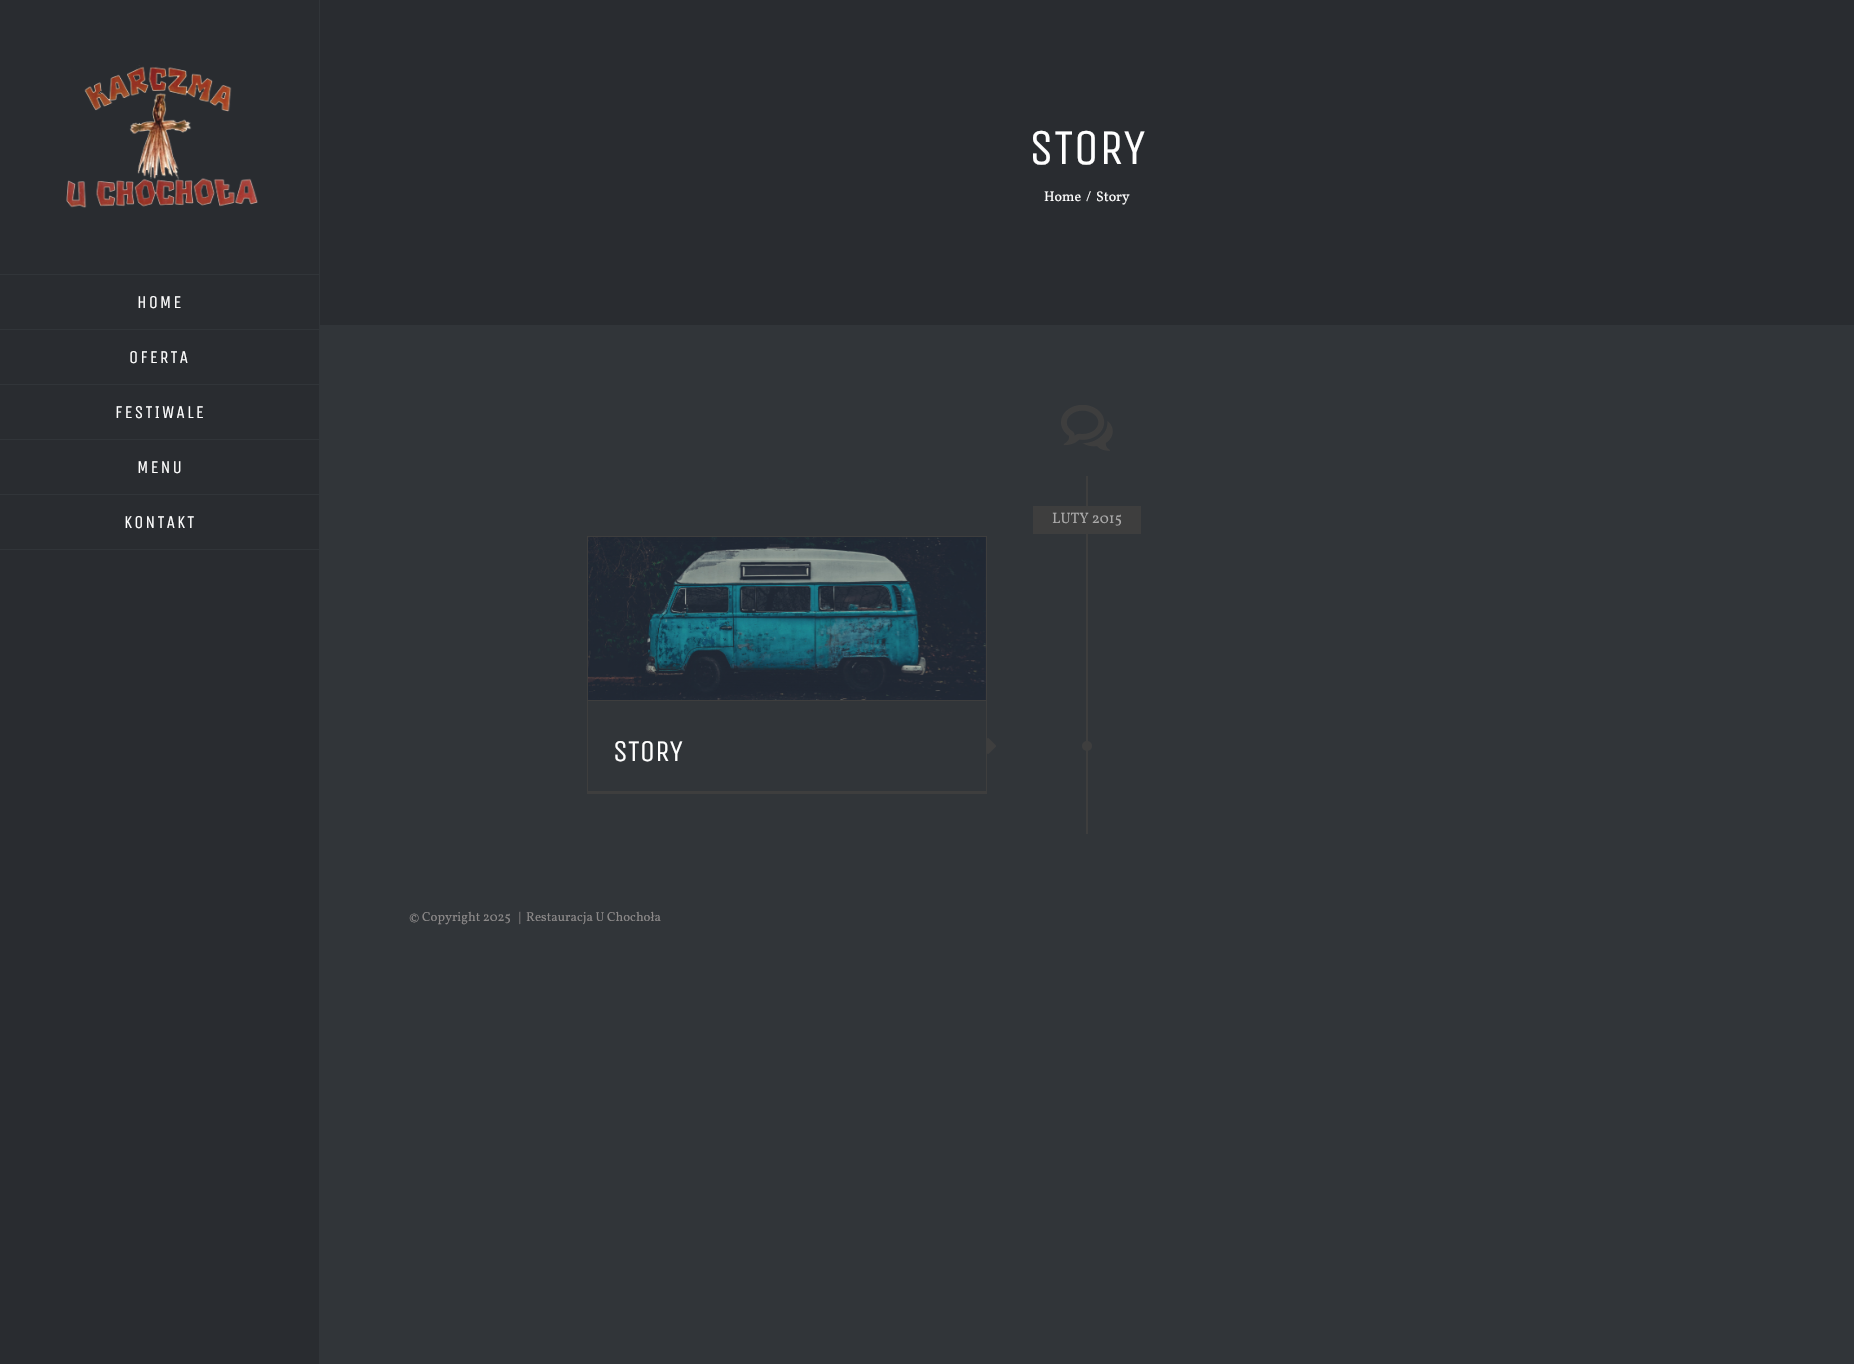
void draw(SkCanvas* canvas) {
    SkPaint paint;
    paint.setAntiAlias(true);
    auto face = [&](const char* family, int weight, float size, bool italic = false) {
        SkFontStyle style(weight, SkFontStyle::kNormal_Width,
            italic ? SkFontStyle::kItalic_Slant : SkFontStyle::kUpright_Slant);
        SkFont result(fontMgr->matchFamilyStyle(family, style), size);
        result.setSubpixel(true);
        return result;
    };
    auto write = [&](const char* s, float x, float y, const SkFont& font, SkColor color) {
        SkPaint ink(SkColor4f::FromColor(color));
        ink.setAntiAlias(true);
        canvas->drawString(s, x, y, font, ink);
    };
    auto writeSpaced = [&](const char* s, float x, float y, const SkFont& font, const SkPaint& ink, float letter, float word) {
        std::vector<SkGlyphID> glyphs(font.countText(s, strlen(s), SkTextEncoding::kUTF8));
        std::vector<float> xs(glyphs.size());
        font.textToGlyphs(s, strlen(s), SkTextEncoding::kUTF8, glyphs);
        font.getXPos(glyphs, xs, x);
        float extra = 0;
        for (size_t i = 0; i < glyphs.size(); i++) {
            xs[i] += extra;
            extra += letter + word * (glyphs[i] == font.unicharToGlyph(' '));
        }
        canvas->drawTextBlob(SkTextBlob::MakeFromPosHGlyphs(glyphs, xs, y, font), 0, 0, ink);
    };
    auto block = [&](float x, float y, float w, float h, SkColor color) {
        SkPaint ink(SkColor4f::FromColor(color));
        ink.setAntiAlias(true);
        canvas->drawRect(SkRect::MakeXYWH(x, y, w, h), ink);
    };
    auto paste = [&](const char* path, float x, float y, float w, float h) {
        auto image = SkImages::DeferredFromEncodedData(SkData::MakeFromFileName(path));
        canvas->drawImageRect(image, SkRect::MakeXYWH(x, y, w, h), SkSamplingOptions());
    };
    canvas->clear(SkColorSetRGB(49, 53, 57));
    block(320, 0, 1534, 325, SkColorSetRGB(41, 44, 48));
    auto kFont1 = face("Unica One", 400, 50);
    write("STORY", 1029, 164, kFont1, SK_ColorWHITE);
    auto kFont2 = face("Vollkorn", 400, 14);
    write("Home", 1044, 201, kFont2, SK_ColorWHITE);
    write("/", 1086, 201, kFont2, SK_ColorWHITE);
    write("Story", 1096, 201, kFont2, SK_ColorWHITE);
    block(0, 0, 319, 1364, SkColorSetRGB(41, 44, 48));
    paste("pic1.png", 66, 65, 192, 143);
    block(0, 274, 320, 1, SkColorSetRGB(49, 53, 57));
    block(0, 329, 320, 1, SkColorSetRGB(49, 53, 57));
    auto kFont3 = face("Unica One", 400, 18);
    paint.setColor(SK_ColorWHITE);
    writeSpaced("HOME", 137, 308, kFont3, paint, 2, 0);
    block(0, 384, 320, 1, SkColorSetRGB(49, 53, 57));
    writeSpaced("OFERTA", 129, 363, kFont3, paint, 2, 0);
    block(0, 439, 320, 1, SkColorSetRGB(49, 53, 57));
    writeSpaced("FESTIWALE", 115, 418, kFont3, paint, 2, 0);
    block(0, 494, 320, 1, SkColorSetRGB(49, 53, 57));
    writeSpaced("MENU", 137, 473, kFont3, paint, 2, 0);
    block(0, 549, 320, 1, SkColorSetRGB(49, 53, 57));
    writeSpaced("KONTAKT", 124, 528, kFont3, paint, 2, 0);
    paste("pic2.png", 1061, 405, 52, 46);
    block(1086, 476, 2, 358, SkColorSetRGB(62, 62, 62));
    block(1033, 506, 108, 28, SkColorSetRGB(62, 62, 62));
    auto kFont4 = face("Vollkorn", 400, 15);
    write("LUTY 2015", 1052, 523, kFont4, SkColorSetRGB(170, 169, 169));
    block(587, 536, 400, 1, SkColorSetRGB(62, 62, 62));
    block(986, 536, 1, 258, SkColorSetRGB(62, 62, 62));
    block(587, 791, 400, 3, SkColorSetRGB(62, 62, 62));
    block(587, 536, 1, 258, SkColorSetRGB(62, 62, 62));
    block(588, 700, 398, 1, SkColorSetRGB(62, 62, 62));
    paste("pic3.png", 588, 537, 398, 163);
    auto kFont5 = face("Unica One", 400, 30);
    write("STORY", 613, 761, kFont5, SK_ColorWHITE);
    paste("pic4.png", 987, 738, 9, 16);
    paint.setColor(SkColorSetRGB(62, 62, 62));
    canvas->drawCircle(1087, 746, 5, paint);
    auto kFont6 = face("Vollkorn", 400, 13);
    write("© Copyright 2025   |  Restauracja U Chochoła", 409, 921, kFont6, SkColorSetRGB(140, 137, 137));
}
